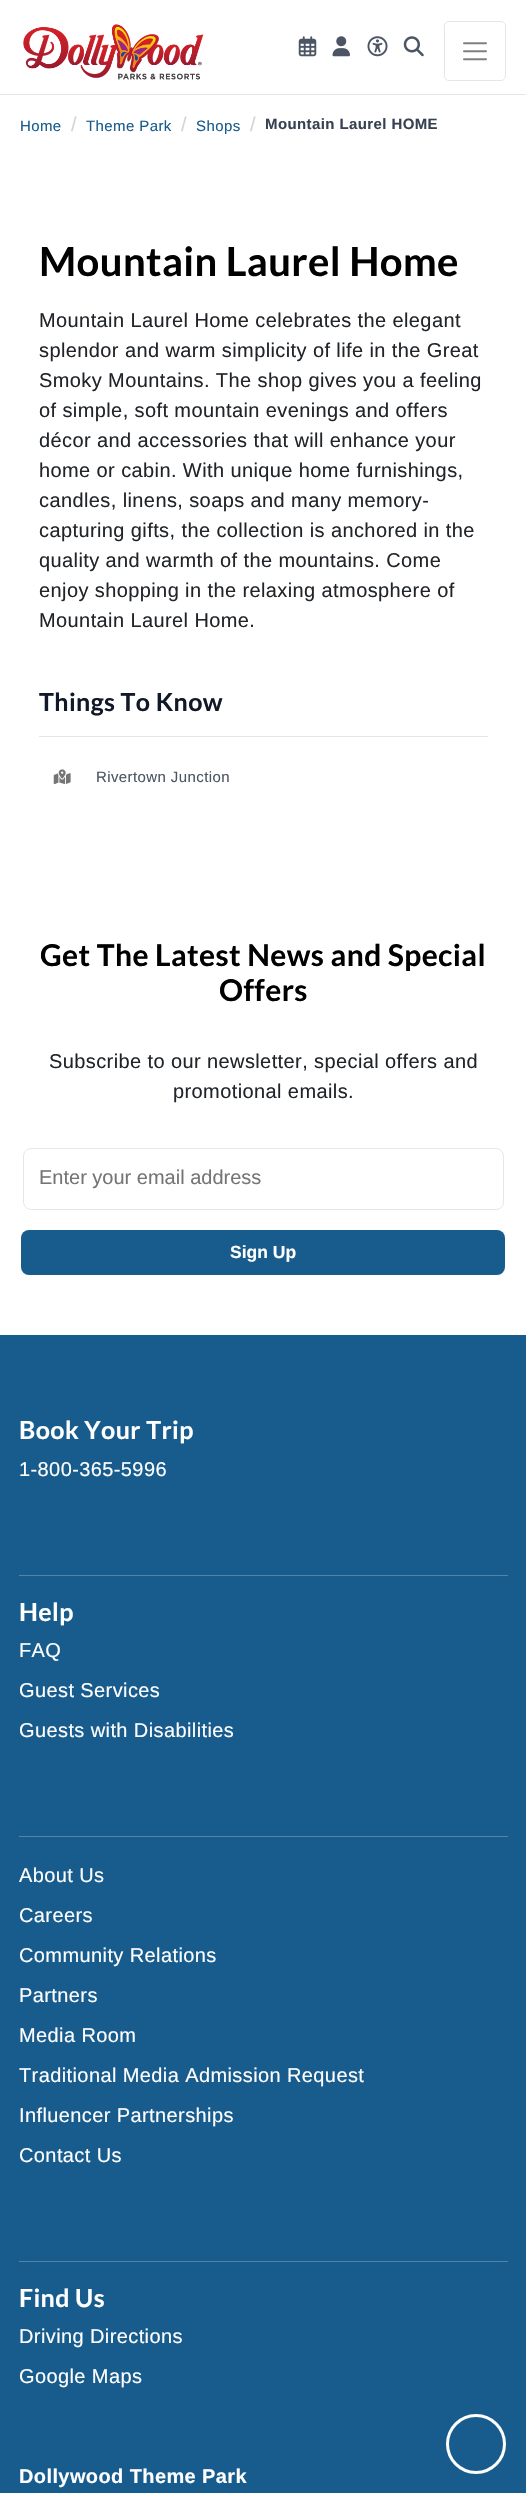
void draw(SkCanvas* canvas) {
    SkPaint paint;
    paint.setAntiAlias(true);
    auto face = [&](const char* family, int weight, float size, bool italic = false) {
        SkFontStyle style(weight, SkFontStyle::kNormal_Width,
            italic ? SkFontStyle::kItalic_Slant : SkFontStyle::kUpright_Slant);
        SkFont result(fontMgr->matchFamilyStyle(family, style), size);
        result.setSubpixel(true);
        return result;
    };
    auto write = [&](const char* s, float x, float y, const SkFont& font, SkColor color) {
        SkPaint ink(SkColor4f::FromColor(color));
        ink.setAntiAlias(true);
        canvas->drawString(s, x, y, font, ink);
    };
    auto writeSpaced = [&](const char* s, float x, float y, const SkFont& font, const SkPaint& ink, float letter, float word) {
        std::vector<SkGlyphID> glyphs(font.countText(s, strlen(s), SkTextEncoding::kUTF8));
        std::vector<float> xs(glyphs.size());
        font.textToGlyphs(s, strlen(s), SkTextEncoding::kUTF8, glyphs);
        font.getXPos(glyphs, xs, x);
        float extra = 0;
        for (size_t i = 0; i < glyphs.size(); i++) {
            xs[i] += extra;
            extra += letter + word * (glyphs[i] == font.unicharToGlyph(' '));
        }
        canvas->drawTextBlob(SkTextBlob::MakeFromPosHGlyphs(glyphs, xs, y, font), 0, 0, ink);
    };
    auto block = [&](float x, float y, float w, float h, SkColor color) {
        SkPaint ink(SkColor4f::FromColor(color));
        ink.setAntiAlias(true);
        canvas->drawRect(SkRect::MakeXYWH(x, y, w, h), ink);
    };
    auto card = [&](float x, float y, float w, float h, float radius, SkColor color) {
        SkPaint ink(SkColor4f::FromColor(color));
        ink.setAntiAlias(true);
        canvas->drawRoundRect(SkRect::MakeXYWH(x, y, w, h), radius, radius, ink);
    };
    auto paste = [&](const char* path, float x, float y, float w, float h) {
        auto image = SkImages::DeferredFromEncodedData(SkData::MakeFromFileName(path));
        canvas->drawImageRect(image, SkRect::MakeXYWH(x, y, w, h), SkSamplingOptions());
    };
    canvas->clear(SK_ColorWHITE);
    block(0, 94, 526, 1, SkColorSetRGB(229, 231, 235));
    paste("pic1.png", 23, 24, 181, 56);
    paste("pic2.png", 298, 36, 19, 21);
    paste("pic3.png", 332, 36, 18, 21);
    paste("pic4.png", 367, 36, 21, 21);
    paste("pic5.png", 403, 36, 21, 21);
    paint.setStyle(SkPaint::kStroke_Style);
    paint.setStrokeWidth(1);
    paint.setColor(SkColorSetRGB(230, 230, 230));
    canvas->drawRoundRect(SkRect::MakeXYWH(444.5f, 21.5f, 61, 59), 4.5f, 4.5f, paint);
    paste("pic6.png", 463, 42, 24, 19);
    auto kFont1 = face("Liberation Sans", 400, 15);
    paint.setStyle(SkPaint::kFill_Style);
    paint.setColor(SkColorSetRGB(24, 92, 142));
    writeSpaced("Home", 20, 131, kFont1, paint, 0.4f, 0);
    auto kFont2 = face("Liberation Sans", 400, 20);
    paint.setColor(SkColorSetRGB(209, 213, 219));
    writeSpaced("/", 71, 131, kFont2, paint, 0.4f, 0);
    paint.setColor(SkColorSetRGB(24, 92, 142));
    writeSpaced("Theme Park", 86, 131, kFont1, paint, 0.4f, 0);
    paint.setColor(SkColorSetRGB(209, 213, 219));
    writeSpaced("/", 181, 131, kFont2, paint, 0.4f, 0);
    paint.setColor(SkColorSetRGB(24, 92, 142));
    writeSpaced("Shops", 196, 131, kFont1, paint, 0.4f, 0);
    paint.setColor(SkColorSetRGB(209, 213, 219));
    writeSpaced("/", 250, 131, kFont2, paint, 0.4f, 0);
    auto kFont3 = face("Liberation Sans", 700, 15);
    paint.setColor(SkColorSetRGB(55, 65, 81));
    writeSpaced("Mountain Laurel HOME", 265, 129, kFont3, paint, 0.4f, 0);
    auto kFont4 = face("Lato", 700, 40);
    paint.setColor(SK_ColorBLACK);
    writeSpaced("Mountain Laurel Home", 39, 276, kFont4, paint, 0.4f, 0);
    paint.setColor(SkColorSetRGB(33, 37, 41));
    writeSpaced("Mountain Laurel Home celebrates the elegant", 39, 327, kFont2, paint, 0.4f, 0);
    writeSpaced("splendor and warm simplicity of life in the Great", 39, 357, kFont2, paint, 0.4f, 0);
    writeSpaced("Smoky Mountains. The shop gives you a feeling", 39, 387, kFont2, paint, 0.4f, 0);
    writeSpaced("of simple, soft mountain evenings and offers", 39, 417, kFont2, paint, 0.4f, 0);
    writeSpaced("décor and accessories that will enhance your", 39, 447, kFont2, paint, 0.4f, 0);
    writeSpaced("home or cabin. With unique home furnishings,", 39, 477, kFont2, paint, 0.4f, 0);
    writeSpaced("candles, linens, soaps and many memory-", 39, 507, kFont2, paint, 0.4f, 0);
    writeSpaced("capturing gifts, the collection is anchored in the", 39, 537, kFont2, paint, 0.4f, 0);
    writeSpaced("quality and warmth of the mountains. Come", 39, 567, kFont2, paint, 0.4f, 0);
    writeSpaced("enjoy shopping in the relaxing atmosphere of", 39, 597, kFont2, paint, 0.4f, 0);
    writeSpaced("Mountain Laurel Home.", 39, 627, kFont2, paint, 0.4f, 0);
    auto kFont5 = face("Lato", 700, 25);
    paint.setColor(SkColorSetRGB(17, 24, 39));
    writeSpaced("Things To Know", 39, 711, kFont5, paint, 0.4f, 0);
    block(39, 736, 449, 1, SkColorSetRGB(230, 230, 230));
    paste("pic7.png", 53, 769, 18, 16);
    paint.setColor(SkColorSetRGB(75, 85, 99));
    writeSpaced("Rivertown Junction", 96, 782, kFont1, paint, 0.4f, 0);
    auto kFont6 = face("Lato", 700, 30);
    paint.setColor(SK_ColorBLACK);
    writeSpaced("Get The Latest News and Special", 40, 966, kFont6, paint, 0.4f, 0);
    writeSpaced("Offers", 219, 1001, kFont6, paint, 0.4f, 0);
    paint.setColor(SkColorSetRGB(33, 37, 41));
    writeSpaced("Subscribe to our newsletter, special offers and", 49, 1068, kFont2, paint, 0.4f, 0);
    writeSpaced("promotional emails.", 173, 1098, kFont2, paint, 0.4f, 0);
    paint.setStyle(SkPaint::kStroke_Style);
    paint.setColor(SkColorSetRGB(229, 231, 235));
    canvas->drawRoundRect(SkRect::MakeXYWH(23.5f, 1148.5f, 480, 61), 7.5f, 7.5f, paint);
    write("Enter your email address", 39, 1184, kFont2, SkColorSetRGB(117, 117, 117));
    card(21, 1230, 484, 45, 8, SkColorSetRGB(24, 92, 142));
    auto kFont7 = face("Liberation Sans", 700, 17.5f);
    write("Sign Up", 230, 1258, kFont7, SK_ColorWHITE);
    block(0, 1335, 526, 1158, SkColorSetRGB(24, 92, 142));
    paint.setStyle(SkPaint::kFill_Style);
    paint.setColor(SK_ColorWHITE);
    writeSpaced("Book Your Trip", 19, 1439, kFont5, paint, 0.4f, 0);
    block(19, 1575, 489, 1, SkColorSetRGB(80, 132, 169));
    writeSpaced("1-800-365-5996", 19, 1476, kFont2, paint, 0.4f, 0);
    writeSpaced("Help", 19, 1621, kFont5, paint, 0.4f, 0);
    block(19, 1836, 489, 1, SkColorSetRGB(80, 132, 169));
    writeSpaced("FAQ", 19, 1657, kFont2, paint, 0.4f, 0);
    writeSpaced("Guest Services", 19, 1697, kFont2, paint, 0.4f, 0);
    writeSpaced("Guests with Disabilities", 19, 1737, kFont2, paint, 0.4f, 0);
    writeSpaced("About Us", 19, 1882, kFont2, paint, 0.4f, 0);
    block(19, 2261, 489, 1, SkColorSetRGB(80, 132, 169));
    writeSpaced("Careers", 19, 1922, kFont2, paint, 0.4f, 0);
    writeSpaced("Community Relations", 19, 1962, kFont2, paint, 0.4f, 0);
    writeSpaced("Partners", 19, 2002, kFont2, paint, 0.4f, 0);
    writeSpaced("Media Room", 19, 2042, kFont2, paint, 0.4f, 0);
    writeSpaced("Traditional Media Admission Request", 19, 2082, kFont2, paint, 0.4f, 0);
    writeSpaced("Influencer Partnerships", 19, 2122, kFont2, paint, 0.4f, 0);
    writeSpaced("Contact Us", 19, 2162, kFont2, paint, 0.4f, 0);
    writeSpaced("Find Us", 19, 2307, kFont5, paint, 0.4f, 0);
    writeSpaced("Driving Directions", 19, 2343, kFont2, paint, 0.4f, 0);
    writeSpaced("Google Maps", 19, 2383, kFont2, paint, 0.4f, 0);
    auto kFont8 = face("Liberation Sans", 700, 20);
    writeSpaced("Dollywood Theme Park", 19, 2483, kFont8, paint, 0.4f, 0);
    paint.setStyle(SkPaint::kStroke_Style);
    paint.setStrokeWidth(3);
    canvas->drawCircle(476, 2444, 28.5f, paint);
}
